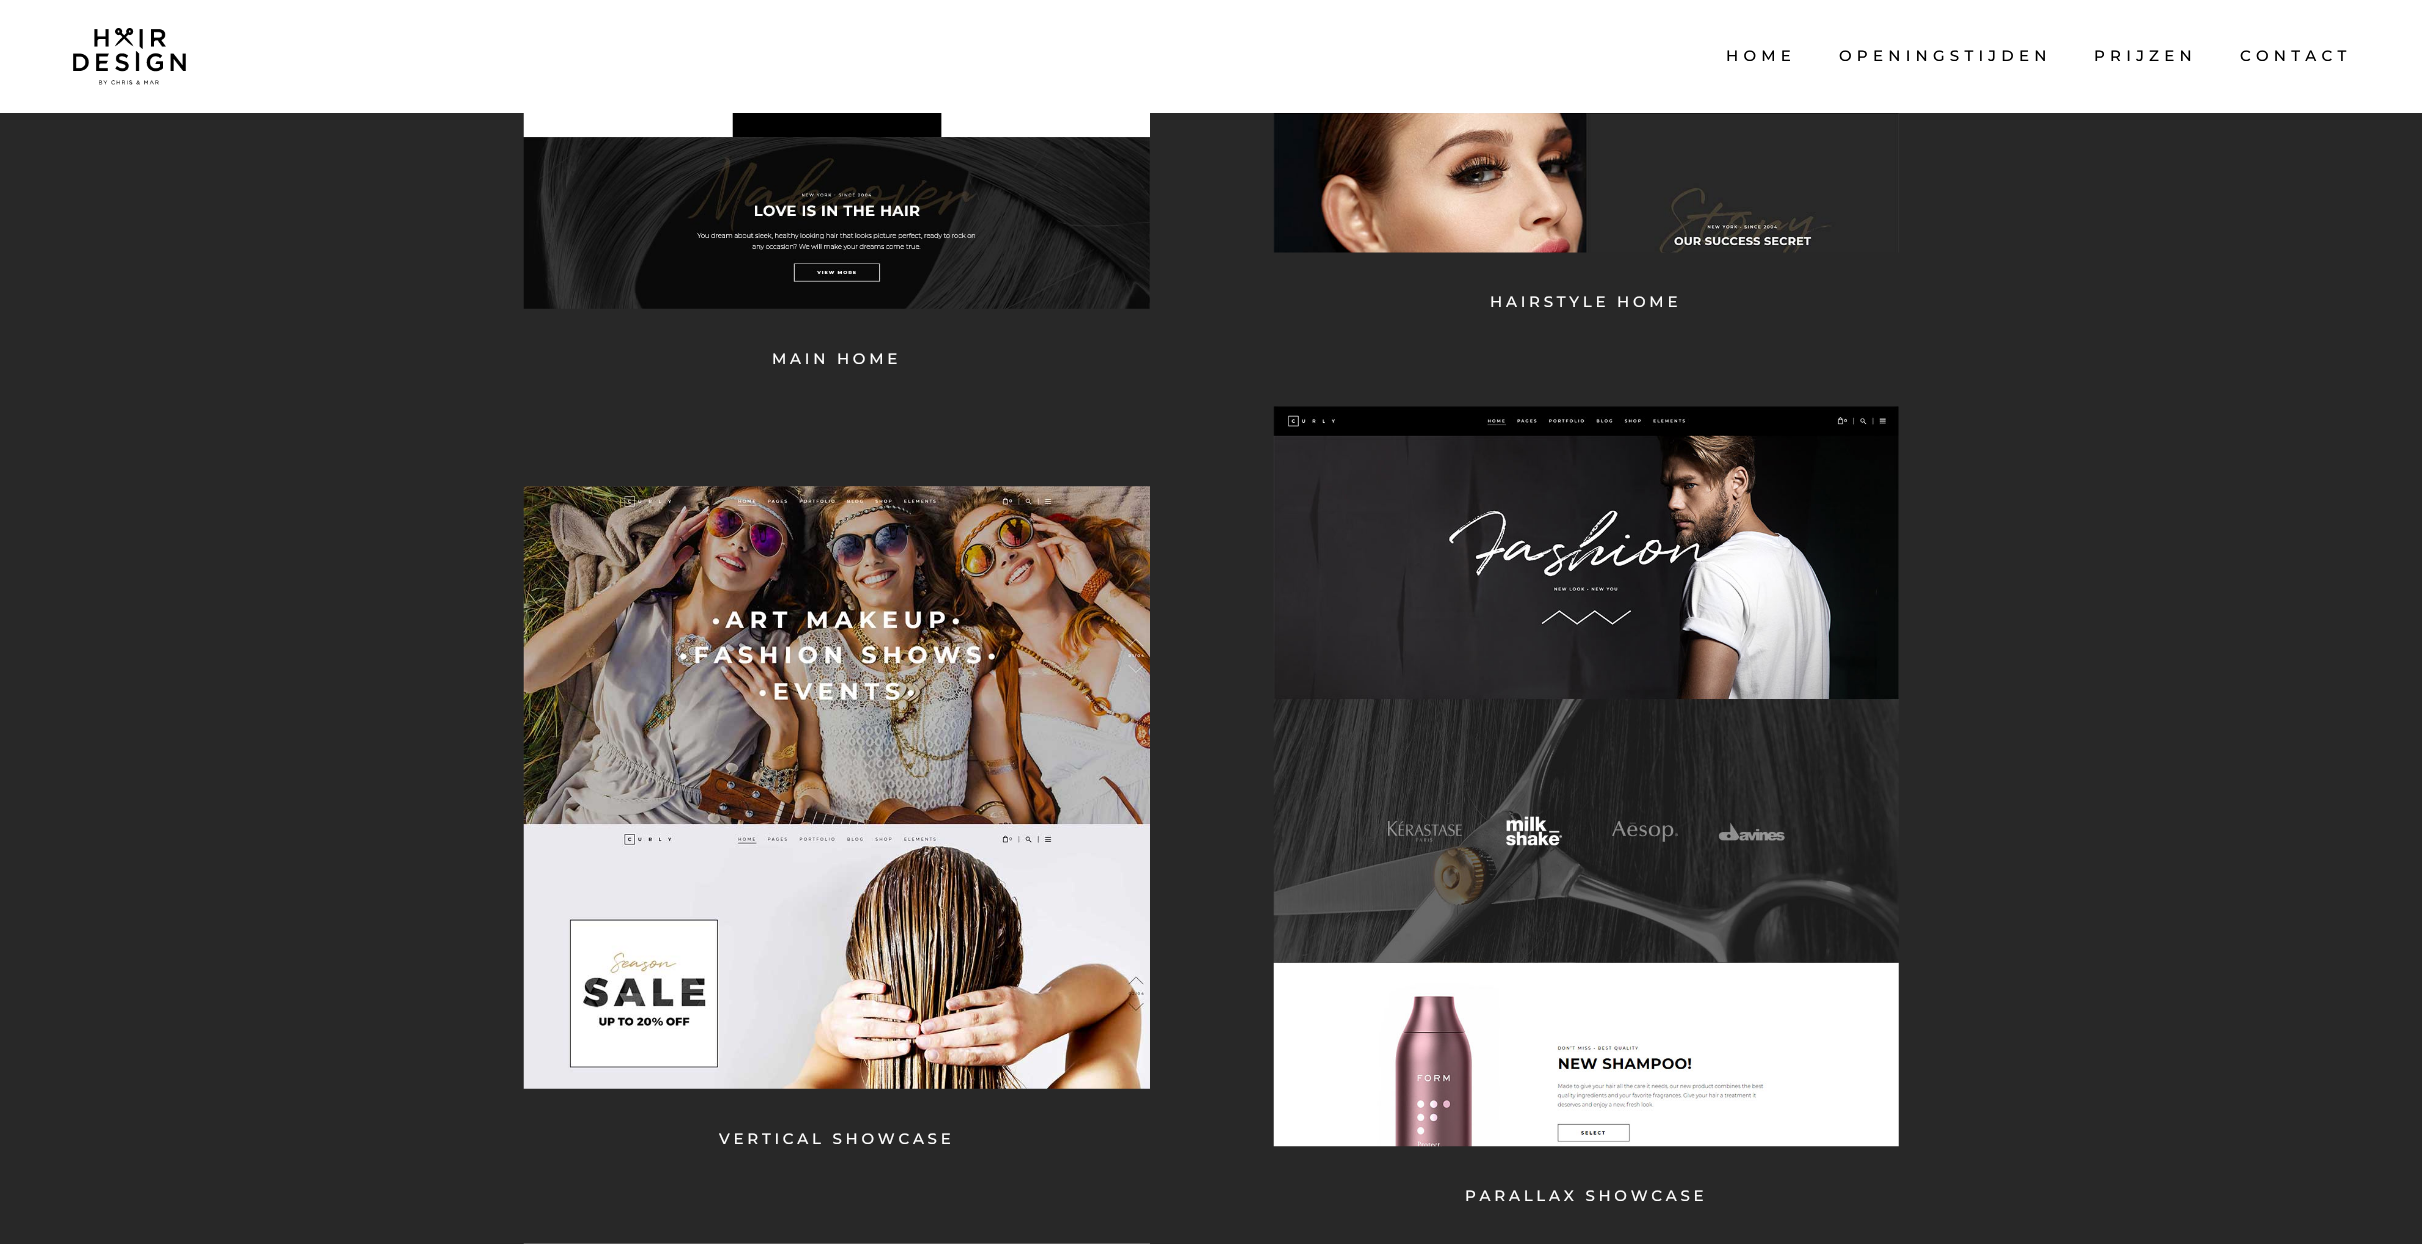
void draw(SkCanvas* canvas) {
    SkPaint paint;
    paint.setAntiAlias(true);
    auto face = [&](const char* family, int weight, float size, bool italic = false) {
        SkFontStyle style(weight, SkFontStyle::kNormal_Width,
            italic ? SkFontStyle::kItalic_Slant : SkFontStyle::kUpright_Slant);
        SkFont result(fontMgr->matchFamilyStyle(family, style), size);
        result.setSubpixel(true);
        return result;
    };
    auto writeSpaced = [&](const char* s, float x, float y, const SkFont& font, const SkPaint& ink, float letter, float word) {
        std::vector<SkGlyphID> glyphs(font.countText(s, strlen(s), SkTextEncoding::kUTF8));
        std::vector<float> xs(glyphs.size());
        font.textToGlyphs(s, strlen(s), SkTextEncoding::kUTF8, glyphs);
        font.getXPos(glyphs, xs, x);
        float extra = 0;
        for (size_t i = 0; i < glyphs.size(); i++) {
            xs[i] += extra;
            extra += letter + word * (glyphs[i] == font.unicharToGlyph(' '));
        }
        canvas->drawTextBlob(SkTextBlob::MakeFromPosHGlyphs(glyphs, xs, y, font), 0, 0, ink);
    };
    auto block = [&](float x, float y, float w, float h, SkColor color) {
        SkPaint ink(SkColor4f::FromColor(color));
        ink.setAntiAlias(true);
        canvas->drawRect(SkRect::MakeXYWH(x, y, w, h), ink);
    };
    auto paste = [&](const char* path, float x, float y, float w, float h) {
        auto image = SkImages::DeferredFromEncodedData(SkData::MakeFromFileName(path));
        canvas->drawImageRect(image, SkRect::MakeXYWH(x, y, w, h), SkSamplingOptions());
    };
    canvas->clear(SkColorSetRGB(40, 40, 40));
    block(0, 0, 2422, 113, SK_ColorWHITE);
    paste("pic1.png", 73, 28, 113, 57);
    auto kFont1 = face("Montserrat", 500, 15);
    paint.setColor(SK_ColorBLACK);
    writeSpaced("HOME", 1726, 61, kFont1, paint, 5.25f, 0);
    writeSpaced("OPENINGSTIJDEN", 1839, 61, kFont1, paint, 5.25f, 0);
    writeSpaced("PRIJZEN", 2094, 61, kFont1, paint, 5.25f, 0);
    writeSpaced("CONTACT", 2240, 61, kFont1, paint, 5.25f, 0);
    paste("pic2.png", 1273, 113, 626, 140);
    paint.setColor(SK_ColorWHITE);
    writeSpaced("HAIRSTYLE HOME", 1490, 307, kFont1, paint, 3.75f, 0);
    paste("pic3.png", 523, 113, 627, 196);
    writeSpaced("MAIN HOME", 772, 364, kFont1, paint, 3.75f, 0);
    paste("pic4.png", 523, 486, 627, 603);
    writeSpaced("VERTICAL SHOWCASE", 719, 1144, kFont1, paint, 3.75f, 0);
    paste("pic5.png", 1273, 406, 626, 741);
    writeSpaced("PARALLAX SHOWCASE", 1465, 1201, kFont1, paint, 3.75f, 0);
    paste("pic6.png", 523, 1243, 627, 1);
}
